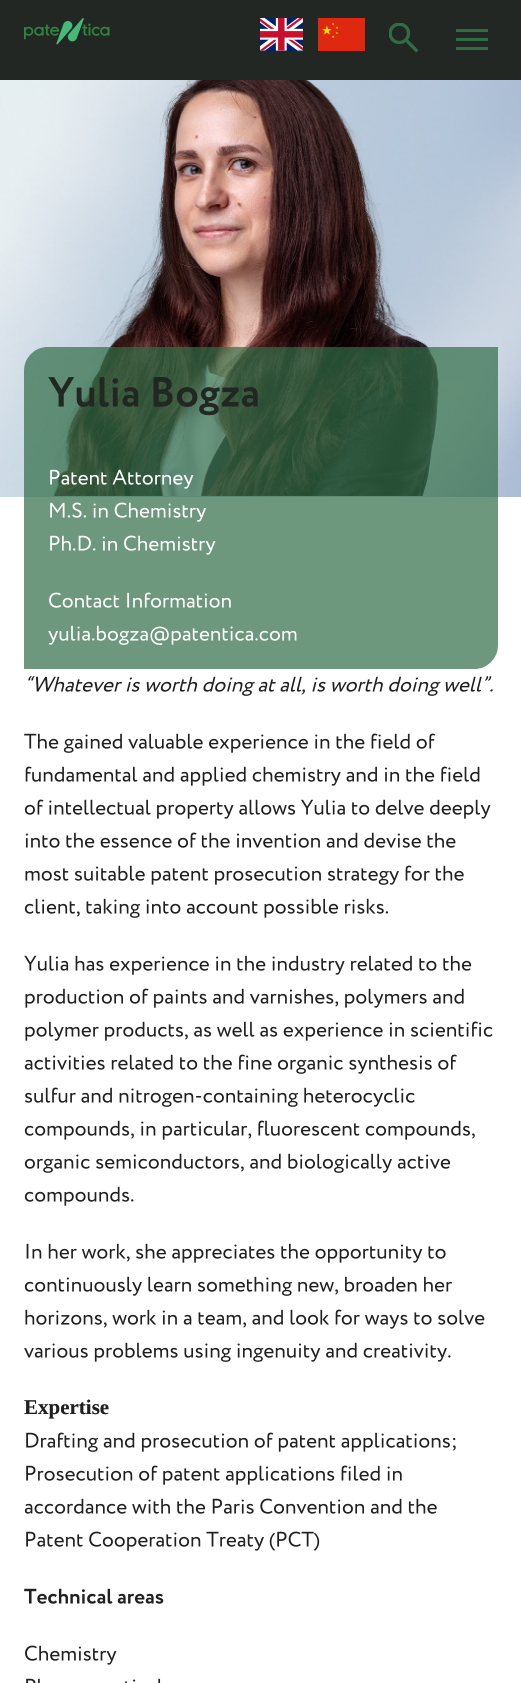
void draw(SkCanvas* canvas) {
    SkPaint paint;
    paint.setAntiAlias(true);
    auto face = [&](const char* family, int weight, float size, bool italic = false) {
        SkFontStyle style(weight, SkFontStyle::kNormal_Width,
            italic ? SkFontStyle::kItalic_Slant : SkFontStyle::kUpright_Slant);
        SkFont result(fontMgr->matchFamilyStyle(family, style), size);
        result.setSubpixel(true);
        return result;
    };
    auto write = [&](const char* s, float x, float y, const SkFont& font, SkColor color) {
        SkPaint ink(SkColor4f::FromColor(color));
        ink.setAntiAlias(true);
        canvas->drawString(s, x, y, font, ink);
    };
    auto block = [&](float x, float y, float w, float h, SkColor color) {
        SkPaint ink(SkColor4f::FromColor(color));
        ink.setAntiAlias(true);
        canvas->drawRect(SkRect::MakeXYWH(x, y, w, h), ink);
    };
    auto paste = [&](const char* path, float x, float y, float w, float h) {
        auto image = SkImages::DeferredFromEncodedData(SkData::MakeFromFileName(path));
        canvas->drawImageRect(image, SkRect::MakeXYWH(x, y, w, h), SkSamplingOptions());
    };
    canvas->clear(SK_ColorWHITE);
    block(0, 0, 521, 80, SkColorSetRGB(34, 39, 35));
    paste("pic1.png", 24, 18, 86, 27);
    paste("pic2.png", 260, 18, 43, 33);
    paste("pic3.png", 318, 18, 47, 33);
    paste("pic4.png", 389, 23, 30, 30);
    block(456, 29, 32, 3, SkColorSetRGB(48, 108, 70));
    block(456, 38, 32, 3, SkColorSetRGB(48, 108, 70));
    block(456, 47, 32, 3, SkColorSetRGB(48, 108, 70));
    paste("pic5.png", 0, 80, 521, 417);
    paste("pic6.png", 53, 80, 386, 416);
    paint.setColor(SkColorSetARGB(179, 48, 108, 70));
    canvas->drawPath(SkPathBuilder().moveTo(48, 347).lineTo(498, 347).lineTo(498, 645).cubicTo(498, 658.5f, 487.5f, 669, 474, 669).lineTo(24, 669).lineTo(24, 371).cubicTo(24, 357.5f, 34.5f, 347, 48, 347).close().detach(), paint);
    paste("pic7.png", 48, 377, 210, 39);
    paste("pic8.png", 50, 469, 144, 20);
    paste("pic9.png", 50, 502, 156, 20);
    paste("pic10.png", 50, 535, 166, 20);
    paste("pic11.png", 49, 592, 182, 16);
    paste("pic12.png", 48, 625, 249, 20);
    paste("pic13.png", 28, 676, 465, 20);
    paste("pic14.png", 24, 733, 412, 20);
    paste("pic15.png", 25, 766, 455, 20);
    paste("pic16.png", 24, 799, 467, 20);
    paste("pic17.png", 25, 832, 431, 16);
    paste("pic18.png", 25, 865, 439, 20);
    paste("pic19.png", 24, 898, 364, 20);
    paste("pic20.png", 24, 955, 448, 20);
    paste("pic21.png", 25, 988, 439, 20);
    paste("pic22.png", 25, 1021, 468, 20);
    paste("pic23.png", 24, 1054, 433, 20);
    paste("pic24.png", 25, 1087, 390, 20);
    paste("pic25.png", 24, 1120, 451, 20);
    paste("pic26.png", 24, 1153, 427, 20);
    paste("pic27.png", 24, 1186, 110, 20);
    paste("pic28.png", 26, 1243, 420, 20);
    paste("pic29.png", 24, 1276, 428, 20);
    paste("pic30.png", 25, 1309, 460, 20);
    paste("pic31.png", 24, 1342, 427, 20);
    auto kFont1 = face("Liberation Serif", 700, 21);
    write("Expertise", 24, 1414, kFont1, SkColorSetRGB(32, 32, 32));
    paste("pic32.png", 26, 1432, 430, 20);
    paste("pic33.png", 26, 1465, 376, 20);
    paste("pic34.png", 24, 1498, 413, 16);
    paste("pic35.png", 26, 1531, 294, 20);
    paste("pic36.png", 24, 1588, 140, 16);
    paste("pic37.png", 25, 1645, 92, 20);
    paste("pic38.png", 26, 1678, 135, 5);
}
